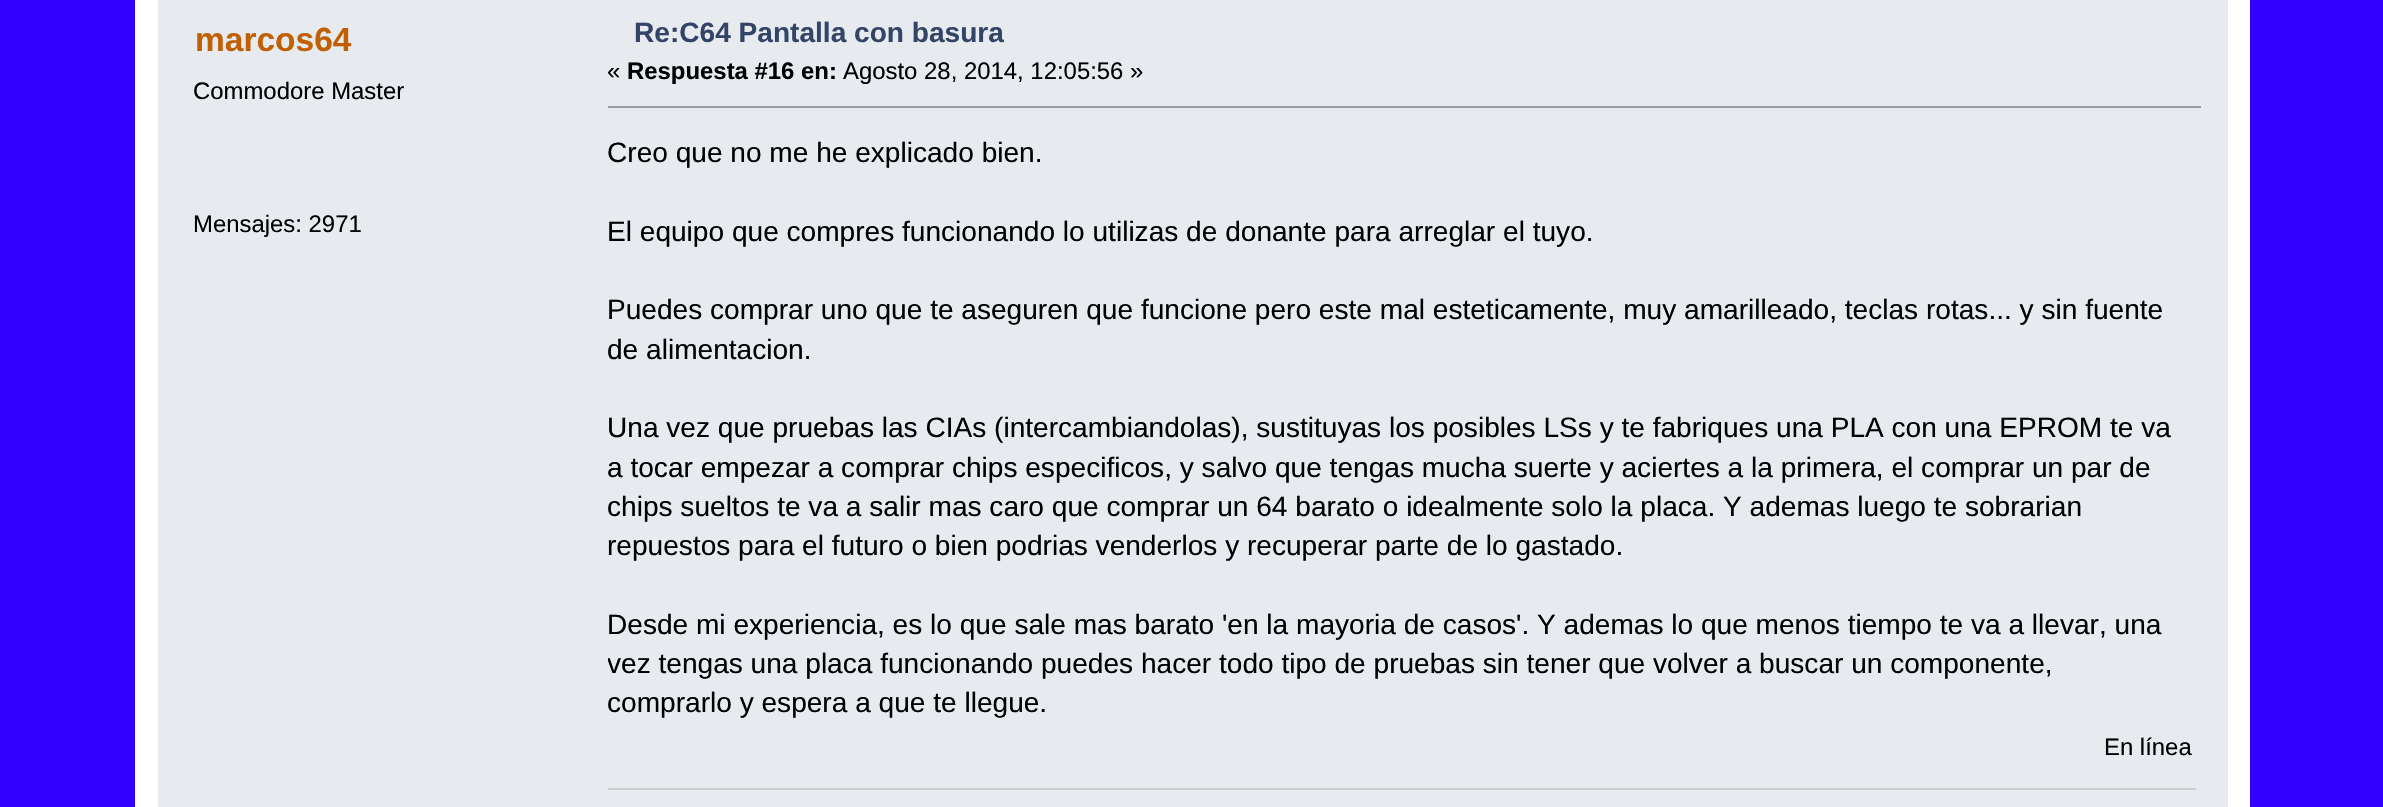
void draw(SkCanvas* canvas) {
    SkPaint paint;
    paint.setAntiAlias(true);
    auto face = [&](const char* family, int weight, float size, bool italic = false) {
        SkFontStyle style(weight, SkFontStyle::kNormal_Width,
            italic ? SkFontStyle::kItalic_Slant : SkFontStyle::kUpright_Slant);
        SkFont result(fontMgr->matchFamilyStyle(family, style), size);
        result.setSubpixel(true);
        return result;
    };
    auto write = [&](const char* s, float x, float y, const SkFont& font, SkColor color) {
        SkPaint ink(SkColor4f::FromColor(color));
        ink.setAntiAlias(true);
        canvas->drawString(s, x, y, font, ink);
    };
    auto block = [&](float x, float y, float w, float h, SkColor color) {
        SkPaint ink(SkColor4f::FromColor(color));
        ink.setAntiAlias(true);
        canvas->drawRect(SkRect::MakeXYWH(x, y, w, h), ink);
    };
    canvas->clear(SkColorSetRGB(49, 0, 255));
    block(135, 0, 2115, 807, SK_ColorWHITE);
    block(158, 0, 2070, 807, SkColorSetRGB(231, 234, 239));
    auto kFont1 = face("Liberation Sans", 700, 33.5f);
    write("marcos64", 195, 51, kFont1, SkColorSetRGB(192, 96, 2));
    auto kFont2 = face("Liberation Sans", 400, 23.9f);
    write("Commodore Master", 193, 99, kFont2, SK_ColorBLACK);
    write("Mensajes: 2971", 193, 232, kFont2, SK_ColorBLACK);
    auto kFont3 = face("Liberation Sans", 700, 28.08f);
    write("Re:C64 Pantalla con basura", 634, 42, kFont3, SkColorSetRGB(51, 68, 102));
    write("«", 607, 79, kFont2, SK_ColorBLACK);
    auto kFont4 = face("Liberation Sans", 700, 23.9f);
    write("Respuesta #16 en:", 627, 79, kFont4, SK_ColorBLACK);
    write("Agosto 28, 2014, 12:05:56 »", 843, 79, kFont2, SK_ColorBLACK);
    block(608, 106, 1593, 2, SkColorSetRGB(153, 153, 170));
    auto kFont5 = face("Liberation Sans", 400, 28.08f);
    write("Creo que no me he explicado bien.", 607, 162, kFont5, SK_ColorBLACK);
    write("El equipo que compres funcionando lo utilizas de donante para arreglar el tuyo.", 607, 241, kFont5, SK_ColorBLACK);
    write("Puedes comprar uno que te aseguren que funcione pero este mal esteticamente, muy amarilleado, teclas rotas... y sin fuente", 607, 319, kFont5, SK_ColorBLACK);
    write("de alimentacion.", 607, 359, kFont5, SK_ColorBLACK);
    write("Una vez que pruebas las CIAs (intercambiandolas), sustituyas los posibles LSs y te fabriques una PLA con una EPROM te va", 607, 437, kFont5, SK_ColorBLACK);
    write("a tocar empezar a comprar chips especificos, y salvo que tengas mucha suerte y aciertes a la primera, el comprar un par de", 607, 477, kFont5, SK_ColorBLACK);
    write("chips sueltos te va a salir mas caro que comprar un 64 barato o idealmente solo la placa. Y ademas luego te sobrarian", 607, 516, kFont5, SK_ColorBLACK);
    write("repuestos para el futuro o bien podrias venderlos y recuperar parte de lo gastado.", 607, 555, kFont5, SK_ColorBLACK);
    write("Desde mi experiencia, es lo que sale mas barato 'en la mayoria de casos'. Y ademas lo que menos tiempo te va a llevar, una", 607, 634, kFont5, SK_ColorBLACK);
    canvas->save();
    canvas->clipRect(SkRect::MakeXYWH(608, 101, 1620, 626));
    write("vez tengas una placa funcionando puedes hacer todo tipo de pruebas sin tener que volver a buscar un componente,", 607, 673, kFont5, SK_ColorBLACK);
    canvas->restore();
    write("comprarlo y espera a que te llegue.", 607, 712, kFont5, SK_ColorBLACK);
    write("En línea", 2104, 755, kFont2, SK_ColorBLACK);
    block(608, 788, 1588, 2, SkColorSetRGB(204, 204, 204));
}
